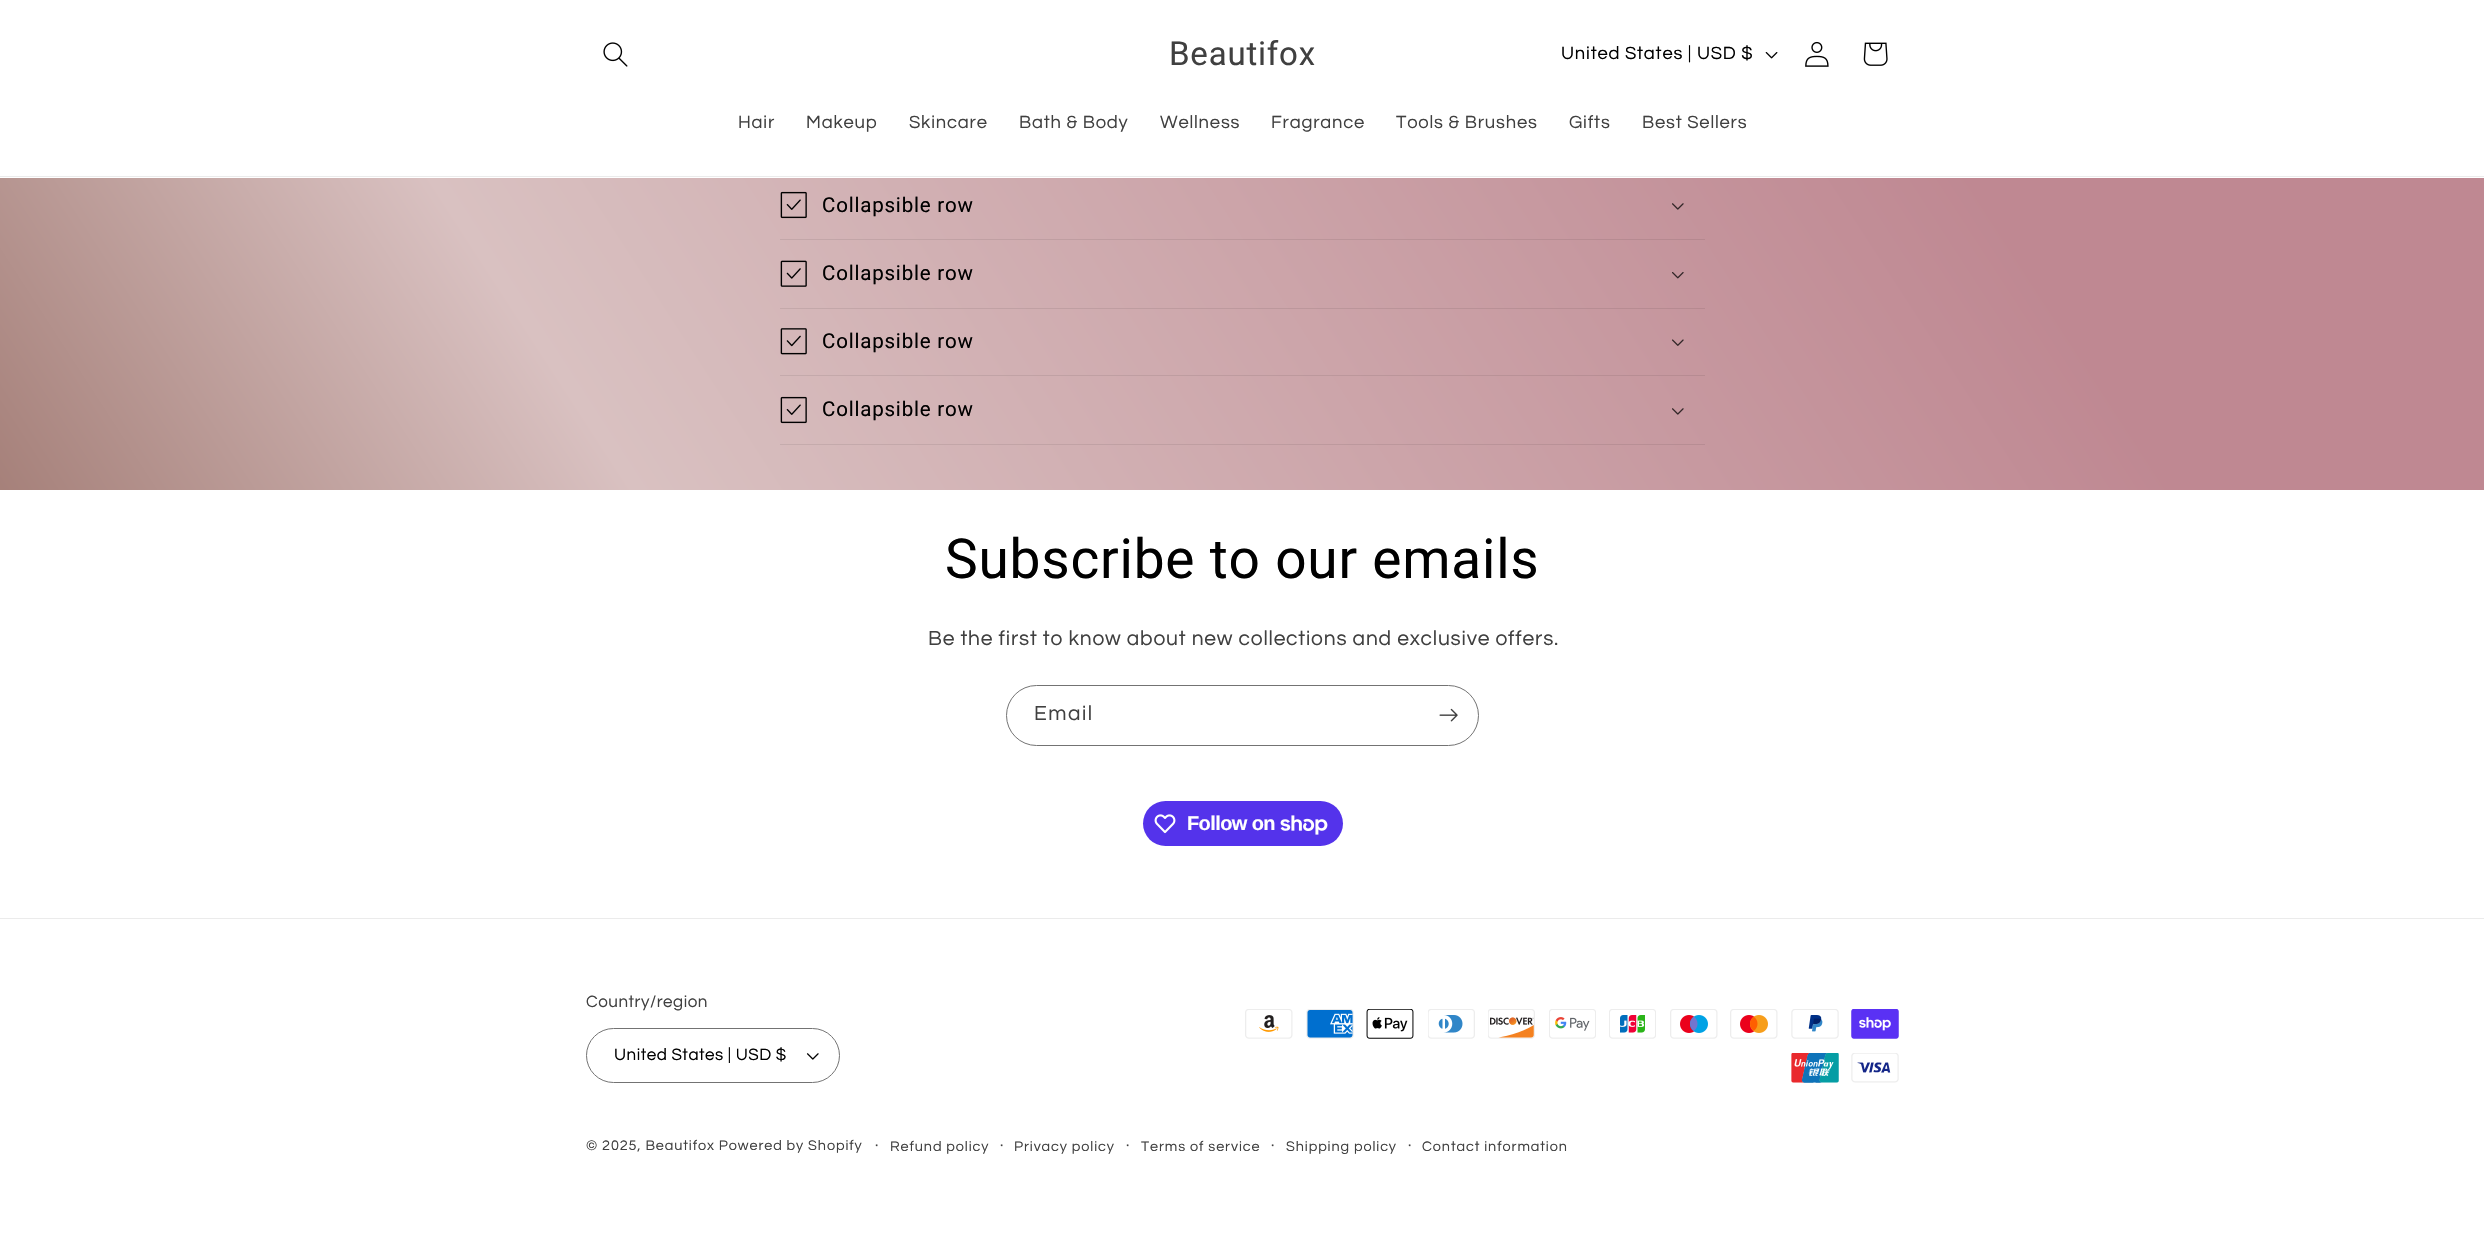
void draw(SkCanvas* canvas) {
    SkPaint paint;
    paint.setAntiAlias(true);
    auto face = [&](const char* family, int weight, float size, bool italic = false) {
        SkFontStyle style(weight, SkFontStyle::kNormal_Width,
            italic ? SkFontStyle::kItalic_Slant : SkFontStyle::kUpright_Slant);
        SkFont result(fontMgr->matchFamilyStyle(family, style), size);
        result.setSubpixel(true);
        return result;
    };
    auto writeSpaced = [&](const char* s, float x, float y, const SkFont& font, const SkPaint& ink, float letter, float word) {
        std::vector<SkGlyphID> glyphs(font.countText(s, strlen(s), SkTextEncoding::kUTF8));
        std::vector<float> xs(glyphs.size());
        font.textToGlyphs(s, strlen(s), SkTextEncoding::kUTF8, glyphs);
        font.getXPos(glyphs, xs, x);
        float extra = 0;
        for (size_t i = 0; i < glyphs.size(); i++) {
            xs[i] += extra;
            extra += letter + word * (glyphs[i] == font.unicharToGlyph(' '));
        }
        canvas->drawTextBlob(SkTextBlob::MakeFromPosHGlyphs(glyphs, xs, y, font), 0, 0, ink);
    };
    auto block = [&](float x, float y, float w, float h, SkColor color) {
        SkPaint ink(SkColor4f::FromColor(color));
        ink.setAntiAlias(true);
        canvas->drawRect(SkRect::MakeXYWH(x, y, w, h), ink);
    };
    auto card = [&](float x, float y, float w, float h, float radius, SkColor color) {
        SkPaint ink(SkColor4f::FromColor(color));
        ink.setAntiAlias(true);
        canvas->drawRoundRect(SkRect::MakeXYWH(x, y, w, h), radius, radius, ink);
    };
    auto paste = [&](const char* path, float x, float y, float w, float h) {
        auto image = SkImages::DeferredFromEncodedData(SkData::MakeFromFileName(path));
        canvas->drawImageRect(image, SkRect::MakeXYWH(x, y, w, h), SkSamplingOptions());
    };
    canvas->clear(SK_ColorWHITE);
    {
        const SkColor colors[] = {SkColorSetRGB(140, 96, 86), SkColorSetRGB(217, 193, 193), SkColorSetRGB(191, 136, 146)};
        const float stops[] = {0.05f, 0.34f, 0.81f};
        const SkPoint ends[] = {{87, 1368}, {2398, -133}};
        paint.setShader(SkGradientShader::MakeLinear(ends, colors, stops, 3, SkTileMode::kClamp));
        paint.setAlpha(255);
    }
    canvas->drawRect(SkRect::MakeXYWH(0, 178, 2484, 312), paint);
    {
        const SkColor colors[] = {SkColorSetRGB(129, 88, 79), SkColorSetRGB(200, 178, 178), SkColorSetRGB(176, 125, 134)};
        const float stops[] = {0.05f, 0.34f, 0.81f};
        const SkPoint ends[] = {{87, 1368}, {2398, -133}};
        paint.setShader(SkGradientShader::MakeLinear(ends, colors, stops, 3, SkTileMode::kClamp));
        paint.setAlpha(255);
    }
    canvas->drawRect(SkRect::MakeXYWH(780, 444, 925, 1), paint);
    canvas->drawRect(SkRect::MakeXYWH(780, 375, 925, 1), paint);
    canvas->drawRect(SkRect::MakeXYWH(780, 308, 925, 1), paint);
    canvas->drawRect(SkRect::MakeXYWH(780, 239, 925, 1), paint);
    block(0, 176, 2484, 1, SkColorSetRGB(235, 235, 235));
    paste("pic1.png", 603, 42, 25, 25);
    auto kFont1 = face("Roboto", 400, 33);
    paint.setShader(nullptr);
    paint.setColor(SkColorSetRGB(64, 64, 64));
    writeSpaced("Beautifox", 1169, 65, kFont1, paint, 0.8f, 0);
    auto kFont2 = face("Questrial", 400, 18.4f);
    paint.setColor(SK_ColorBLACK);
    writeSpaced("United States | USD $", 1561, 59, kFont2, paint, 0.8f, 0);
    paste("pic2.png", 1765, 52, 13, 7);
    paste("pic3.png", 1805, 41, 24, 26);
    paste("pic4.png", 1863, 42, 25, 24);
    paint.setColor(SkColorSetRGB(64, 64, 64));
    writeSpaced("Hair", 738, 128, kFont2, paint, 0.8f, 0);
    writeSpaced("Makeup", 806, 128, kFont2, paint, 0.8f, 0);
    writeSpaced("Skincare", 909, 128, kFont2, paint, 0.8f, 0);
    writeSpaced("Bath & Body", 1019, 128, kFont2, paint, 0.8f, 0);
    writeSpaced("Wellness", 1160, 128, kFont2, paint, 0.8f, 0);
    writeSpaced("Fragrance", 1271, 128, kFont2, paint, 0.8f, 0);
    writeSpaced("Tools & Brushes", 1396, 128, kFont2, paint, 0.8f, 0);
    writeSpaced("Gifts", 1569, 128, kFont2, paint, 0.8f, 0);
    writeSpaced("Best Sellers", 1642, 128, kFont2, paint, 0.8f, 0);
    paste("pic5.png", 780, 191, 27, 28);
    auto kFont3 = face("Roboto", 400, 20.5f);
    paint.setColor(SK_ColorBLACK);
    writeSpaced("Collapsible row", 822, 212, kFont3, paint, 0.8f, 0);
    paste("pic6.png", 1672, 203, 12, 7);
    paste("pic7.png", 780, 260, 27, 27);
    writeSpaced("Collapsible row", 822, 280, kFont3, paint, 0.8f, 0);
    paste("pic8.png", 1672, 272, 12, 7);
    paste("pic9.png", 780, 328, 27, 27);
    writeSpaced("Collapsible row", 822, 348, kFont3, paint, 0.8f, 0);
    paste("pic10.png", 1672, 339, 12, 7);
    paste("pic11.png", 780, 396, 27, 28);
    writeSpaced("Collapsible row", 822, 416, kFont3, paint, 0.8f, 0);
    paste("pic12.png", 1672, 408, 12, 7);
    auto kFont4 = face("Roboto", 400, 55);
    writeSpaced("Subscribe to our emails", 945, 578, kFont4, paint, 0.8f, 0);
    auto kFont5 = face("Questrial", 400, 21);
    paint.setColor(SkColorSetRGB(64, 64, 64));
    writeSpaced("Be the first to know about new collections and exclusive offers.", 928, 645, kFont5, paint, 0.8f, 0);
    paint.setStyle(SkPaint::kStroke_Style);
    paint.setStrokeWidth(1);
    paint.setColor(SkColorSetRGB(115, 115, 115));
    canvas->drawRoundRect(SkRect::MakeXYWH(1006.5f, 685.5f, 472, 60), 30, 30, paint);
    paint.setStyle(SkPaint::kFill_Style);
    paint.setColor(SkColorSetRGB(64, 64, 64));
    writeSpaced("Email", 1034, 720, kFont5, paint, 1.5f, 0);
    paste("pic13.png", 1439, 708, 19, 14);
    card(1143, 801, 200, 45, 22.5f, SkColorSetRGB(84, 51, 235));
    paste("pic14.png", 1154, 814, 22, 20);
    auto kFont6 = face("Liberation Sans", 700, 20);
    paint.setColor(SK_ColorWHITE);
    writeSpaced("Follow on", 1187, 830, kFont6, paint, -0.6f, 0);
    paste("pic15.png", 1280, 815, 48, 20);
    block(0, 918, 2484, 1, SkColorSetRGB(235, 235, 235));
    auto kFont7 = face("Questrial", 400, 17);
    paint.setColor(SkColorSetRGB(64, 64, 64));
    writeSpaced("Country/region", 586, 1007, kFont7, paint, 0.5f, 0);
    paste("pic16.png", 806, 1053, 13, 7);
    paint.setStyle(SkPaint::kStroke_Style);
    paint.setColor(SkColorSetRGB(115, 115, 115));
    canvas->drawRoundRect(SkRect::MakeXYWH(586.5f, 1028.5f, 253, 54), 27, 27, paint);
    paint.setStyle(SkPaint::kFill_Style);
    paint.setColor(SK_ColorBLACK);
    writeSpaced("United States | USD $", 614, 1060, kFont7, paint, 0.5f, 0);
    paste("pic17.png", 1245, 1009, 48, 30);
    paste("pic18.png", 1306, 1009, 48, 30);
    paste("pic19.png", 1366, 1009, 48, 30);
    paste("pic20.png", 1428, 1009, 47, 30);
    paste("pic21.png", 1488, 1009, 47, 30);
    paste("pic22.png", 1549, 1009, 47, 30);
    paste("pic23.png", 1609, 1009, 47, 30);
    paste("pic24.png", 1670, 1009, 48, 30);
    paste("pic25.png", 1730, 1009, 48, 30);
    paste("pic26.png", 1791, 1009, 48, 30);
    paste("pic27.png", 1851, 1009, 48, 30);
    paste("pic28.png", 1791, 1053, 48, 30);
    paste("pic29.png", 1851, 1053, 48, 30);
    auto kFont8 = face("Questrial", 400, 14.4f);
    paint.setColor(SkColorSetRGB(64, 64, 64));
    writeSpaced("© 2025, Beautifox Powered by Shopify", 586, 1150, kFont8, paint, 0.9f, 0);
    auto kFont9 = face("Questrial", 400, 16);
    writeSpaced("·", 875, 1150, kFont9, paint, 0.9f, 0);
    writeSpaced("Refund policy", 890, 1151, kFont8, paint, 0.9f, 0);
    writeSpaced("·", 1000, 1150, kFont9, paint, 0.9f, 0);
    writeSpaced("Privacy policy", 1014, 1151, kFont8, paint, 0.9f, 0);
    writeSpaced("·", 1126, 1150, kFont9, paint, 0.9f, 0);
    writeSpaced("Terms of service", 1141, 1151, kFont8, paint, 0.9f, 0);
    writeSpaced("·", 1271, 1150, kFont9, paint, 0.9f, 0);
    writeSpaced("Shipping policy", 1286, 1151, kFont8, paint, 0.9f, 0);
    writeSpaced("·", 1408, 1150, kFont9, paint, 0.9f, 0);
    writeSpaced("Contact information", 1422, 1151, kFont8, paint, 0.9f, 0);
}
